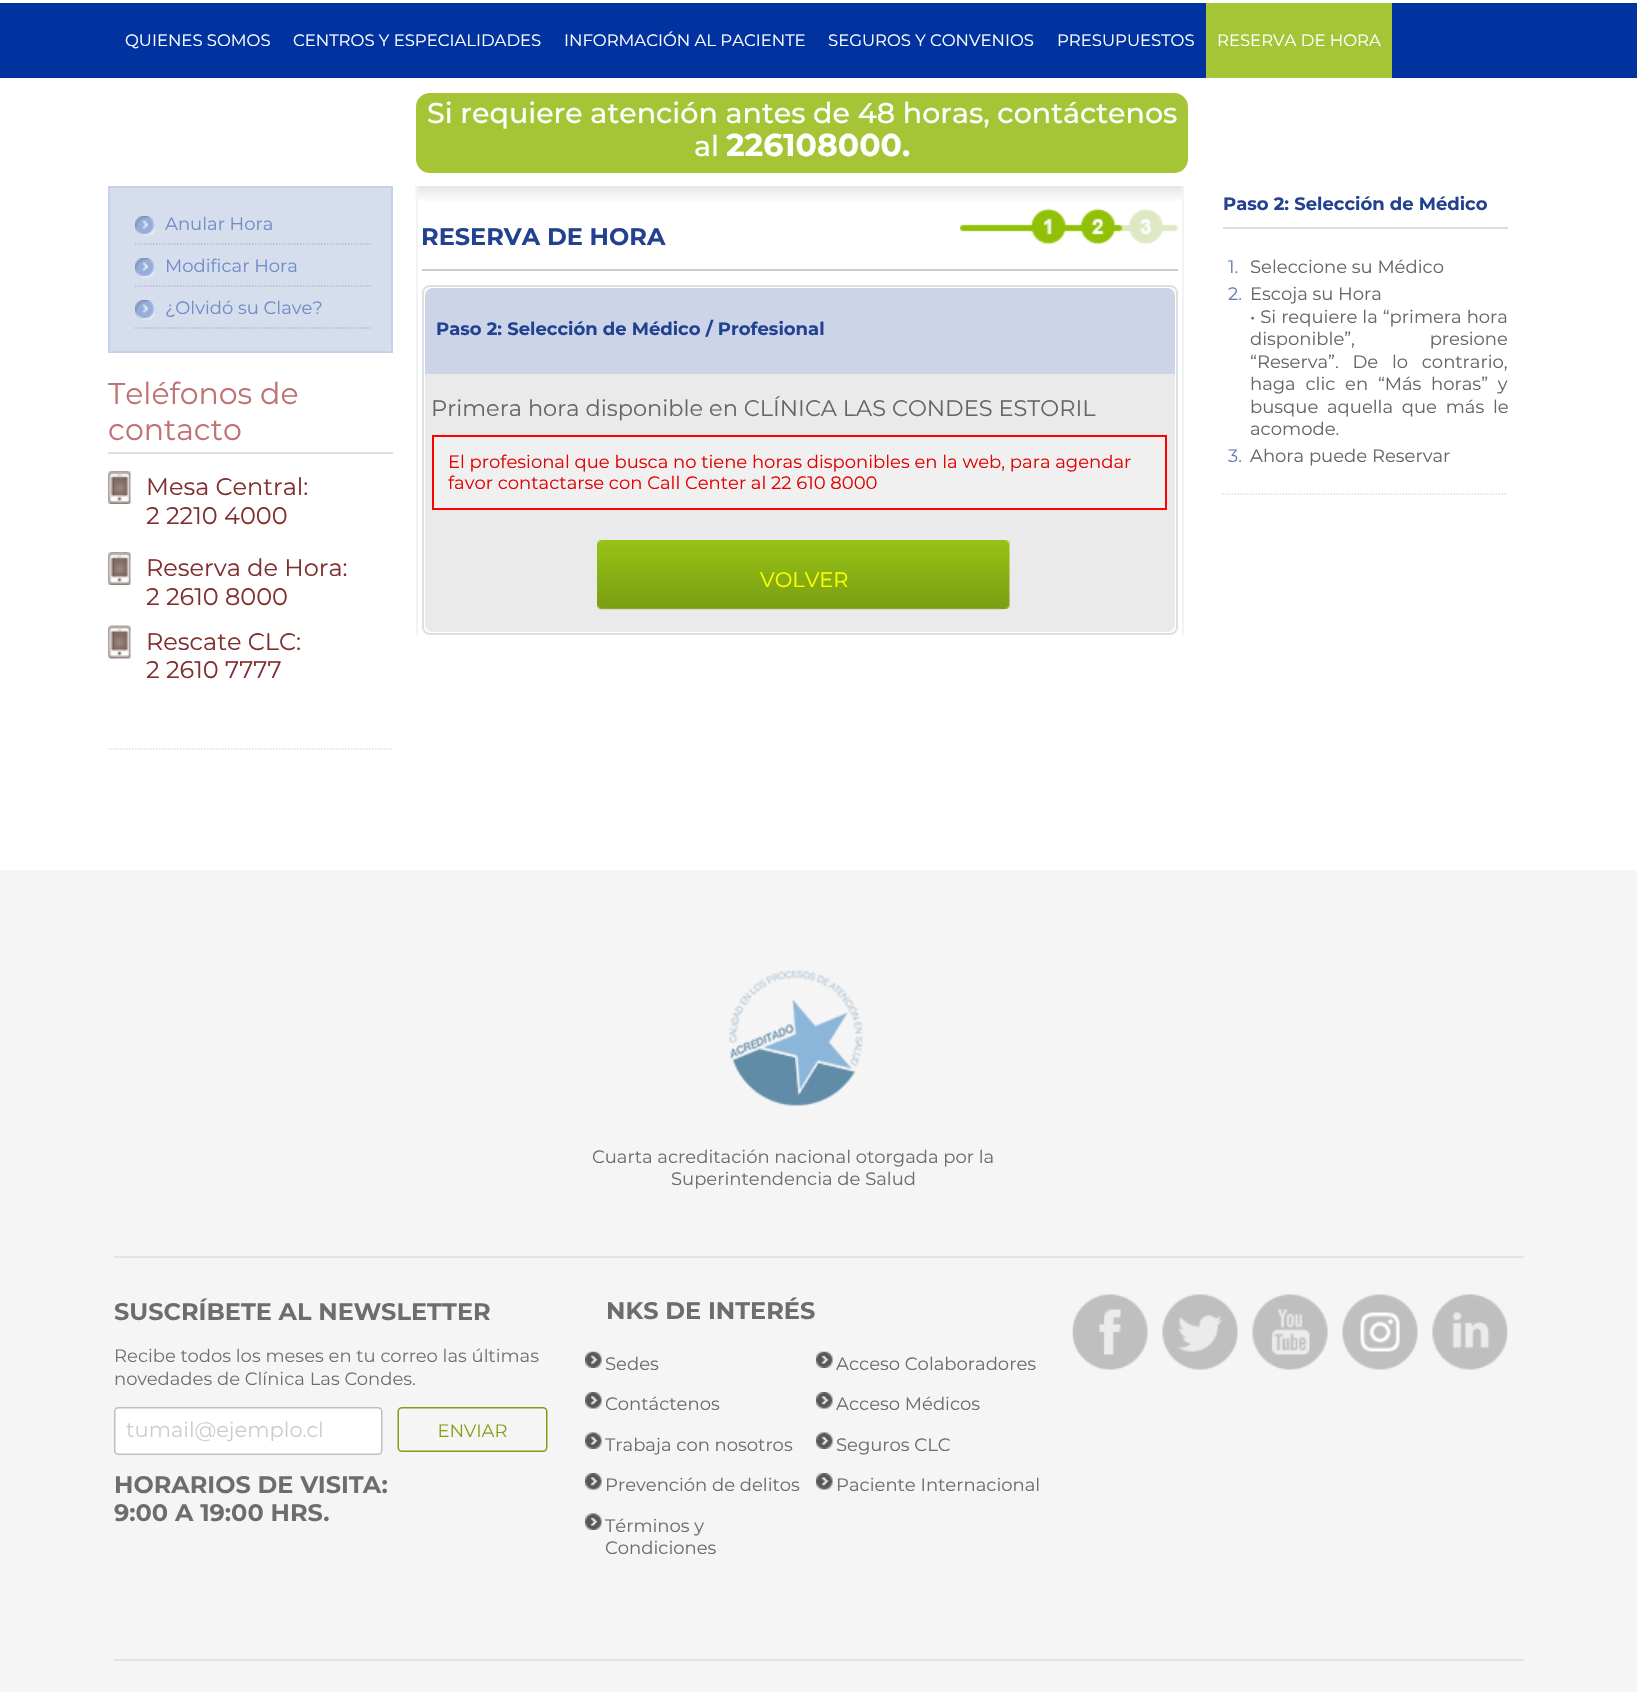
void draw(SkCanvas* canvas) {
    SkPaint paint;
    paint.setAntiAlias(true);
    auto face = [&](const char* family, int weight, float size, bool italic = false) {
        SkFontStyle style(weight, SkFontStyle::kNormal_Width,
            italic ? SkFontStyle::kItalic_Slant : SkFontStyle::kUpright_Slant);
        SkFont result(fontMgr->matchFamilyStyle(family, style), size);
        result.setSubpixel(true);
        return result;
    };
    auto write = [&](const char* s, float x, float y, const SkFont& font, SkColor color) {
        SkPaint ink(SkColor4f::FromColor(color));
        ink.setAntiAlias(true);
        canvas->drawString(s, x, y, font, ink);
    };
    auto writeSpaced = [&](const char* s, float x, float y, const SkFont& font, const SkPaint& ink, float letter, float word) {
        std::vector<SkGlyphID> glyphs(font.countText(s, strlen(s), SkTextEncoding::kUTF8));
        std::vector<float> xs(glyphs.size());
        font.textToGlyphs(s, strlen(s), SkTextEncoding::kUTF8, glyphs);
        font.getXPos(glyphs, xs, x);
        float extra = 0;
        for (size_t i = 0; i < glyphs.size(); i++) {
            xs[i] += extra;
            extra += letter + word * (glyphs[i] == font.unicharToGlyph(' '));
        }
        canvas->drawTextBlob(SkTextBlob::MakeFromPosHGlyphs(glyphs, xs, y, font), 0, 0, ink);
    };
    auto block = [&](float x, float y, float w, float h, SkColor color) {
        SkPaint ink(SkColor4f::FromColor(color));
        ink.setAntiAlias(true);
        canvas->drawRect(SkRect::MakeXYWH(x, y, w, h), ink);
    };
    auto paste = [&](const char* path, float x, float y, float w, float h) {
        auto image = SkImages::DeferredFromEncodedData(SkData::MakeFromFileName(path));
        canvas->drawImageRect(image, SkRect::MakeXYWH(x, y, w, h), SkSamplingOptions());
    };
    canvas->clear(SK_ColorWHITE);
    block(0, 3, 1637, 75, SkColorSetRGB(0, 51, 160));
    auto kFont1 = face("Montserrat", 400, 16.5f);
    write("QUIENES SOMOS", 125, 46, kFont1, SK_ColorWHITE);
    write("CENTROS Y ESPECIALIDADES", 293, 46, kFont1, SK_ColorWHITE);
    write("INFORMACIÓN AL PACIENTE", 564, 46, kFont1, SK_ColorWHITE);
    write("SEGUROS Y CONVENIOS", 828, 46, kFont1, SK_ColorWHITE);
    write("PRESUPUESTOS", 1057, 46, kFont1, SK_ColorWHITE);
    block(1206, 3, 186, 75, SkColorSetRGB(165, 197, 54));
    write("RESERVA DE HORA", 1217, 46, kFont1, SK_ColorWHITE);
    paint.setColor(SkColorSetRGB(165, 197, 54));
    canvas->drawRoundRect(SkRect::MakeXYWH(417, 94, 770, 78), 13, 13, paint);
    paint.setStyle(SkPaint::kStroke_Style);
    paint.setStrokeWidth(2);
    canvas->drawRoundRect(SkRect::MakeXYWH(417, 94, 770, 78), 13, 13, paint);
    auto kFont2 = face("Montserrat", 500, 28.5f);
    write("Si requiere atención antes de 48 horas, contáctenos", 427, 123, kFont2, SK_ColorWHITE);
    write("al", 694, 156, kFont2, SK_ColorWHITE);
    auto kFont3 = face("Montserrat", 700, 31.5f);
    write("226108000.", 726, 156, kFont3, SK_ColorWHITE);
    paint.setStyle(SkPaint::kFill_Style);
    paint.setColor(SkColorSetRGB(214, 222, 237));
    canvas->drawRect(SkRect::MakeXYWH(109, 187, 283, 165), paint);
    paint.setStyle(SkPaint::kStroke_Style);
    paint.setColor(SkColorSetRGB(197, 210, 234));
    canvas->drawRect(SkRect::MakeXYWH(109, 187, 283, 165), paint);
    paint.setStrokeWidth(1.5f);
    paint.setColor(SkColorSetRGB(182, 189, 202));
    paint.setPathEffect(SkDashPathEffect::Make({{1.5f, 1.5f}}, 0));
    canvas->drawPath(SkPathBuilder().moveTo(135, 244).lineTo(370.5f, 244).detach(), paint);
    paint.setPathEffect(nullptr);
    paste("pic1.png", 135, 216, 20, 20);
    auto kFont4 = face("Montserrat", 400, 18);
    write("Anular Hora", 165, 230, kFont4, SkColorSetRGB(112, 141, 198));
    paint.setPathEffect(SkDashPathEffect::Make({{1.5f, 1.5f}}, 0));
    canvas->drawPath(SkPathBuilder().moveTo(135, 286).lineTo(370.5f, 286).detach(), paint);
    paint.setPathEffect(nullptr);
    paste("pic1.png", 135, 258, 20, 20);
    write("Modificar Hora", 165, 272, kFont4, SkColorSetRGB(112, 141, 198));
    paint.setPathEffect(SkDashPathEffect::Make({{1.5f, 1.5f}}, 0));
    canvas->drawPath(SkPathBuilder().moveTo(135, 328).lineTo(370.5f, 328).detach(), paint);
    paint.setPathEffect(nullptr);
    paste("pic1.png", 135, 300, 20, 20);
    write("¿Olvidó su Clave?", 165, 314, kFont4, SkColorSetRGB(112, 141, 198));
    paint.setColor(SkColorSetRGB(220, 223, 227));
    paint.setPathEffect(SkDashPathEffect::Make({{1.5f, 1.5f}}, 0));
    canvas->drawPath(SkPathBuilder().moveTo(108, 749).lineTo(393, 749).detach(), paint);
    paint.setPathEffect(nullptr);
    block(108, 452, 285, 2, SkColorSetRGB(220, 223, 227));
    auto kFont5 = face("Montserrat", 400, 30);
    write("Teléfonos de", 108, 404, kFont5, SkColorSetRGB(192, 114, 114));
    write("contacto", 108, 440, kFont5, SkColorSetRGB(192, 114, 114));
    paste("pic2.png", 108, 471, 23, 33);
    auto kFont6 = face("Montserrat", 400, 24);
    write("Mesa Central:", 146, 495, kFont6, SkColorSetRGB(129, 46, 46));
    write("2 2210 4000", 146, 524, kFont6, SkColorSetRGB(129, 46, 46));
    paste("pic2.png", 108, 552, 23, 33);
    write("Reserva de Hora:", 146, 576, kFont6, SkColorSetRGB(129, 46, 46));
    write("2 2610 8000", 146, 605, kFont6, SkColorSetRGB(129, 46, 46));
    paste("pic3.png", 108, 625, 23, 34);
    write("Rescate CLC:", 146, 650, kFont6, SkColorSetRGB(129, 46, 46));
    write("2 2610 7777", 146, 678, kFont6, SkColorSetRGB(129, 46, 46));
    paste("pic4.png", 415, 186, 767, 15);
    block(1182, 186, 2, 449, SkColorSetRGB(242, 243, 244));
    block(416, 186, 2, 449, SkColorSetRGB(242, 243, 244));
    block(422, 269, 756, 2, SkColorSetRGB(204, 204, 204));
    auto kFont7 = face("Montserrat", 700, 24);
    write("RESERVA DE HORA", 421, 245, kFont7, SkColorSetRGB(34, 66, 145));
    paste("pic5.png", 960, 208, 218, 37);
    paint.setStrokeWidth(2);
    paint.setColor(SkColorSetRGB(223, 223, 223));
    canvas->drawRoundRect(SkRect::MakeXYWH(423, 286, 754, 348), 7, 7, paint);
    paint.setStyle(SkPaint::kFill_Style);
    paint.setColor(SkColorSetRGB(203, 213, 231));
    canvas->drawPath(SkPathBuilder().moveTo(433, 288).lineTo(1167, 288).cubicTo(1171.5f, 288, 1175, 291.5f, 1175, 296).lineTo(1175, 374).lineTo(425, 374).lineTo(425, 296).cubicTo(425, 291.5f, 428.5f, 288, 433, 288).close().detach(), paint);
    auto kFont8 = face("Montserrat", 700, 18);
    write("Paso 2: Selección de Médico / Profesional", 436, 335, kFont8, SkColorSetRGB(34, 66, 145));
    paint.setColor(SkColorSetRGB(234, 234, 234));
    canvas->drawPath(SkPathBuilder().moveTo(425, 374).lineTo(1175, 374).lineTo(1175, 624).cubicTo(1175, 628.5f, 1171.5f, 632, 1167, 632).lineTo(433, 632).cubicTo(428.5f, 632, 425, 628.5f, 425, 624).close().detach(), paint);
    auto kFont9 = face("Montserrat", 400, 22.5f);
    write("Primera hora disponible en CLÍNICA LAS CONDES ESTORIL", 431, 416, kFont9, SkColorSetRGB(102, 102, 102));
    paint.setColor(SkColorSetRGB(240, 240, 240));
    canvas->drawRect(SkRect::MakeXYWH(433, 436, 733, 73), paint);
    paint.setStyle(SkPaint::kStroke_Style);
    paint.setColor(SkColorSetRGB(255, 0, 0));
    canvas->drawRect(SkRect::MakeXYWH(433, 436, 733, 73), paint);
    write("El profesional que busca no tiene horas disponibles en la web, para agendar", 448, 468, kFont4, SkColorSetRGB(227, 1, 1));
    write("favor contactarse con Call Center al 22 610 8000", 448, 489, kFont4, SkColorSetRGB(227, 1, 1));
    paste("pic6.png", 1000, 540, 10, 69);
    paste("pic7.png", 597, 540, 405, 70);
    auto kFont10 = face("Montserrat", 400, 21);
    write("VOLVER", 760, 587, kFont10, SkColorSetRGB(252, 255, 0));
    paint.setStrokeWidth(1.5f);
    paint.setColor(SkColorSetRGB(220, 223, 227));
    paint.setPathEffect(SkDashPathEffect::Make({{1.5f, 1.5f}}, 0));
    canvas->drawPath(SkPathBuilder().moveTo(1222.5f, 494).lineTo(1507.5f, 494).detach(), paint);
    paint.setPathEffect(nullptr);
    block(1223, 227, 285, 2, SkColorSetRGB(219, 222, 226));
    write("Paso 2: Selección de Médico", 1223, 210, kFont8, SkColorSetRGB(34, 66, 145));
    write("1.", 1228, 273, kFont4, SkColorSetRGB(104, 126, 178));
    write("Seleccione su Médico", 1250, 273, kFont4, SkColorSetRGB(102, 102, 102));
    write("2.", 1228, 300, kFont4, SkColorSetRGB(104, 126, 178));
    write("Escoja su Hora", 1250, 300, kFont4, SkColorSetRGB(102, 102, 102));
    paint.setStyle(SkPaint::kFill_Style);
    paint.setColor(SkColorSetRGB(102, 102, 102));
    writeSpaced("• Si requiere la “primera hora", 1250, 323, kFont4, paint, 0, 0.25f);
    writeSpaced("disponible”, presione", 1250, 345, kFont4, paint, 0, 70);
    writeSpaced("“Reserva”. De lo contrario,", 1250, 368, kFont4, paint, 0, 9);
    writeSpaced("haga clic en “Más horas” y", 1250, 390, kFont4, paint, 0, 5);
    writeSpaced("busque aquella que más le", 1250, 413, kFont4, paint, 0, 4);
    write("acomode.", 1250, 435, kFont4, SkColorSetRGB(102, 102, 102));
    write("3.", 1228, 462, kFont4, SkColorSetRGB(104, 126, 178));
    write("Ahora puede Reservar", 1250, 462, kFont4, SkColorSetRGB(102, 102, 102));
    block(0, 870, 1637, 822, SkColorSetRGB(245, 245, 245));
    block(114, 1256, 1410, 2, SkColorSetRGB(227, 227, 229));
    paste("pic8.png", 729, 970, 134, 136);
    write("Cuarta acreditación nacional otorgada por la", 592, 1163, kFont4, SkColorSetRGB(109, 109, 109));
    write("Superintendencia de Salud", 671, 1185, kFont4, SkColorSetRGB(109, 109, 109));
    paste("pic9.png", 114, 1298, 489, 224);
    write("NKS DE INTERÉS", 606, 1319, kFont7, SkColorSetRGB(109, 109, 109));
    paste("pic10.png", 585, 1351, 17, 17);
    write("Sedes", 605, 1370, kFont4, SkColorSetRGB(109, 109, 109));
    paste("pic11.png", 816, 1351, 17, 17);
    write("Acceso Colaboradores", 836, 1370, kFont4, SkColorSetRGB(109, 109, 109));
    paste("pic12.png", 585, 1392, 17, 17);
    write("Contáctenos", 605, 1410, kFont4, SkColorSetRGB(109, 109, 109));
    paste("pic13.png", 816, 1392, 17, 17);
    write("Acceso Médicos", 836, 1410, kFont4, SkColorSetRGB(109, 109, 109));
    paste("pic14.png", 585, 1432, 17, 17);
    write("Trabaja con nosotros", 605, 1451, kFont4, SkColorSetRGB(109, 109, 109));
    paste("pic15.png", 816, 1432, 17, 17);
    write("Seguros CLC", 836, 1451, kFont4, SkColorSetRGB(109, 109, 109));
    paste("pic12.png", 585, 1473, 17, 17);
    write("Prevención de delitos", 605, 1491, kFont4, SkColorSetRGB(109, 109, 109));
    paste("pic13.png", 816, 1473, 17, 17);
    write("Paciente Internacional", 836, 1491, kFont4, SkColorSetRGB(109, 109, 109));
    paste("pic14.png", 585, 1513, 17, 17);
    write("Términos y", 605, 1532, kFont4, SkColorSetRGB(109, 109, 109));
    write("Condiciones", 605, 1554, kFont4, SkColorSetRGB(109, 109, 109));
    paste("pic16.png", 1072, 1294, 76, 76);
    paste("pic17.png", 1162, 1294, 76, 76);
    paste("pic18.png", 1252, 1294, 76, 76);
    paste("pic19.png", 1342, 1294, 76, 76);
    paste("pic20.png", 1432, 1294, 76, 76);
    block(114, 1659, 1410, 2, SkColorSetRGB(227, 227, 229));
}
